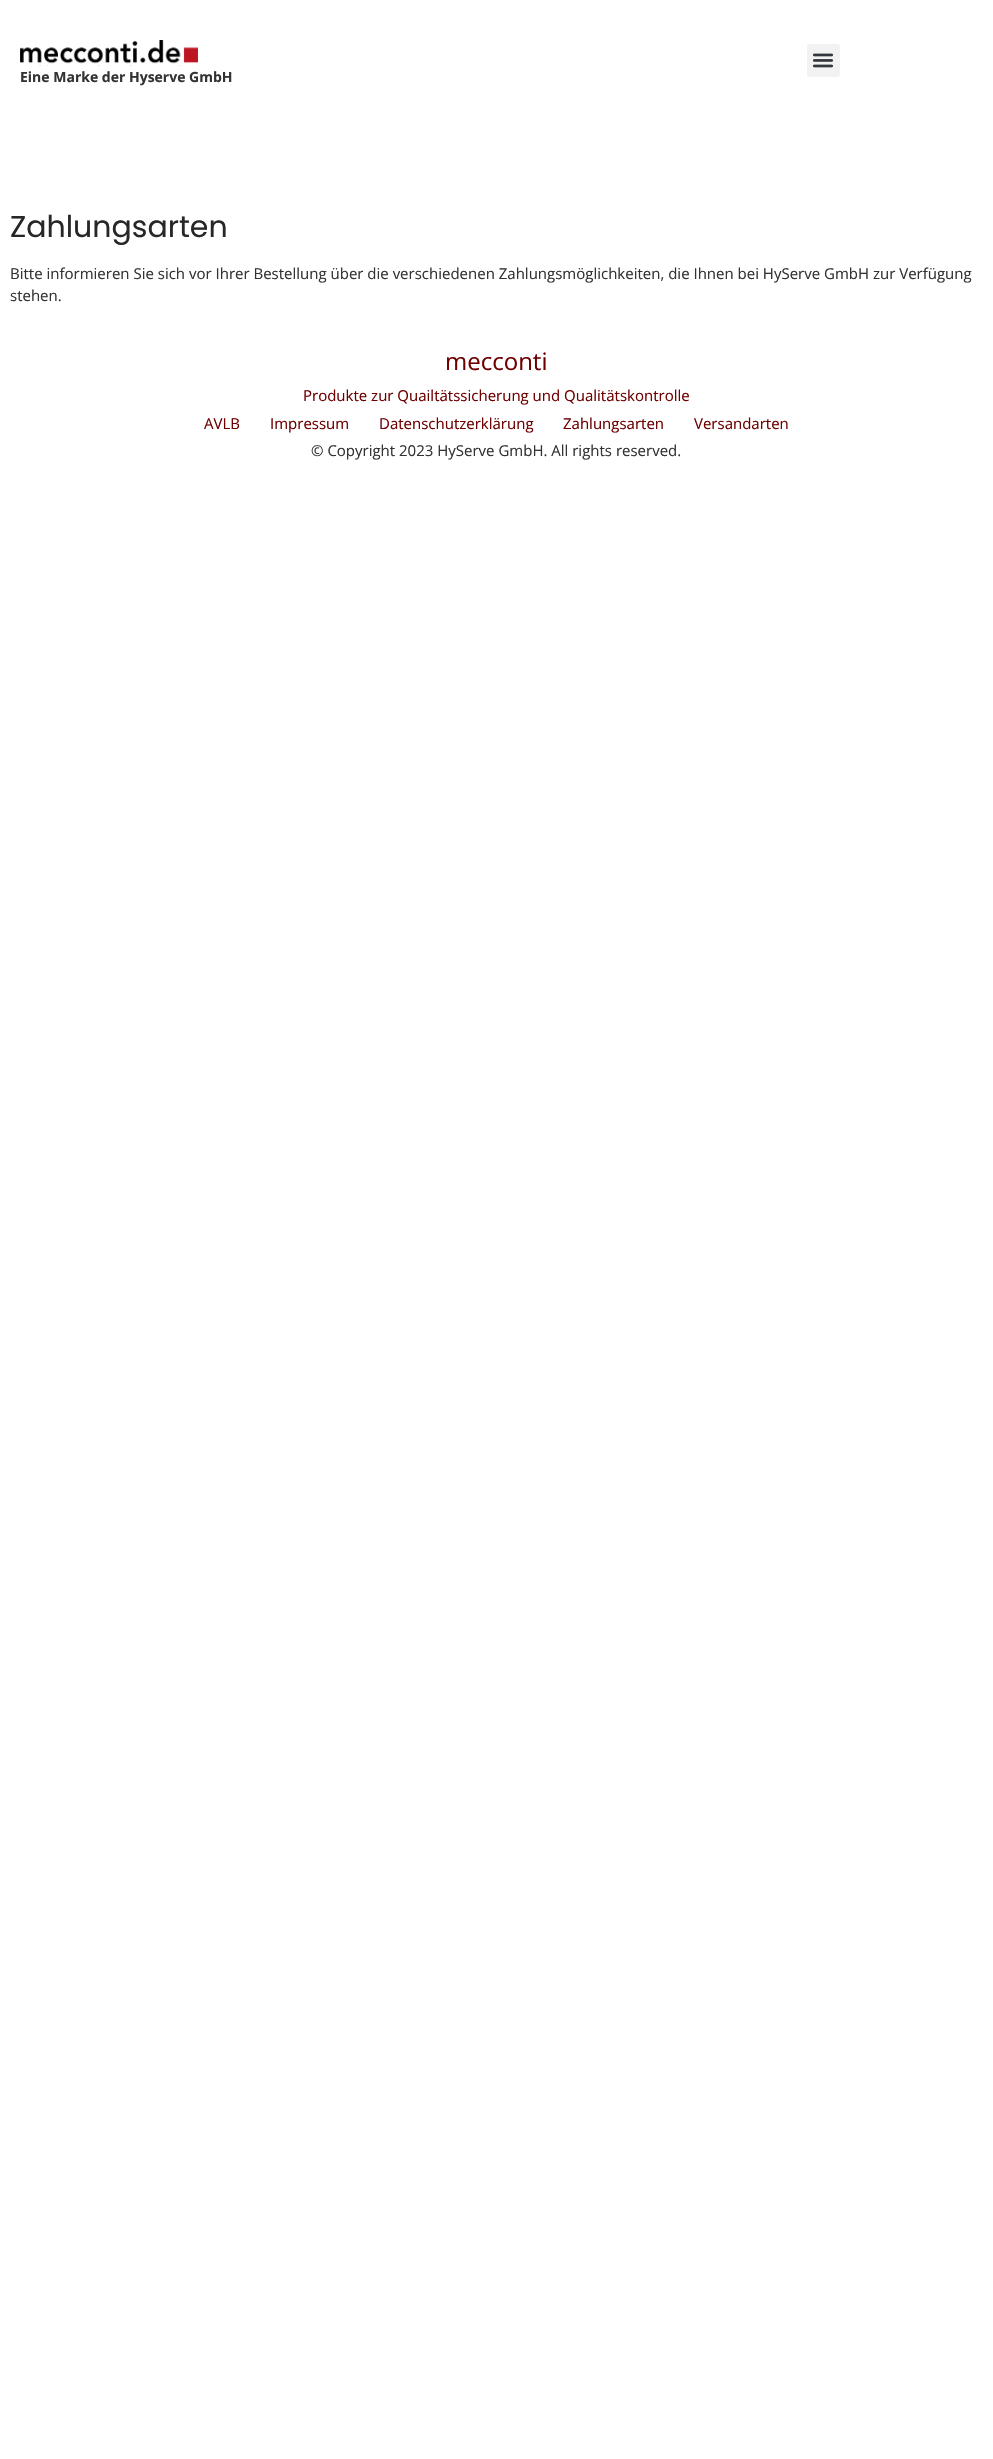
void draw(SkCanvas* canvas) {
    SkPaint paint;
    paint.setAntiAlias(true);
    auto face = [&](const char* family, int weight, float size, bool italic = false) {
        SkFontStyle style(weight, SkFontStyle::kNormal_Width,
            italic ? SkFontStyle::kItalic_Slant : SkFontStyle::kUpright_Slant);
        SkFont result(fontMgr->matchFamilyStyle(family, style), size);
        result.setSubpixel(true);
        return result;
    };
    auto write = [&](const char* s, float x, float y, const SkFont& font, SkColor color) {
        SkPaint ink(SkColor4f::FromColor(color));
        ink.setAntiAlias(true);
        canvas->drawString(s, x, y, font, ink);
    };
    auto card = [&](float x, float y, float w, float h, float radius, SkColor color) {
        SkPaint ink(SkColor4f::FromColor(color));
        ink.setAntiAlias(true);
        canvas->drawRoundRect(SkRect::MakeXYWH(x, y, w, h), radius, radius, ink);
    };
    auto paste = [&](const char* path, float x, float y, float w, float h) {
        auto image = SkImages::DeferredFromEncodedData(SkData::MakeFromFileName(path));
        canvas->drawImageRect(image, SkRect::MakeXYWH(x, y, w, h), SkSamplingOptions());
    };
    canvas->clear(SK_ColorWHITE);
    card(807, 44, 33, 33, 3, SkColorSetRGB(242, 242, 242));
    paste("pic1.png", 812, 53, 22, 15);
    paste("pic2.png", 20, 40, 178, 26);
    auto kFont1 = face("Open Sans", 700, 14);
    write("Eine Marke der Hyserve GmbH", 20, 82, kFont1, SkColorSetRGB(51, 51, 51));
    auto kFont2 = face("Poppins", 400, 30);
    write("Zahlungsarten", 10, 237, kFont2, SkColorSetRGB(39, 39, 39));
    auto kFont3 = face("Open Sans", 400, 15);
    write("Bitte informieren Sie sich vor Ihrer Bestellung über die verschiedenen Zahlungsmöglichkeiten, die Ihnen bei HyServe GmbH zur Verfügung", 10, 279, kFont3, SkColorSetRGB(51, 51, 51));
    write("stehen.", 10, 301, kFont3, SkColorSetRGB(51, 51, 51));
    auto kFont4 = face("Open Sans", 400, 24);
    write("mecconti", 445, 370, kFont4, SkColorSetRGB(110, 0, 0));
    write("Produkte zur Quailtätssicherung und Qualitätskontrolle", 303, 401, kFont3, SkColorSetRGB(110, 0, 0));
    write("AVLB", 204, 429, kFont3, SkColorSetRGB(110, 0, 0));
    write("Impressum", 270, 429, kFont3, SkColorSetRGB(110, 0, 0));
    write("Datenschutzerklärung", 379, 429, kFont3, SkColorSetRGB(110, 0, 0));
    write("Zahlungsarten", 563, 429, kFont3, SkColorSetRGB(110, 0, 0));
    write("Versandarten", 694, 429, kFont3, SkColorSetRGB(110, 0, 0));
    write("© Copyright 2023 HyServe GmbH. All rights reserved.", 311, 456, kFont3, SkColorSetRGB(51, 51, 51));
}
